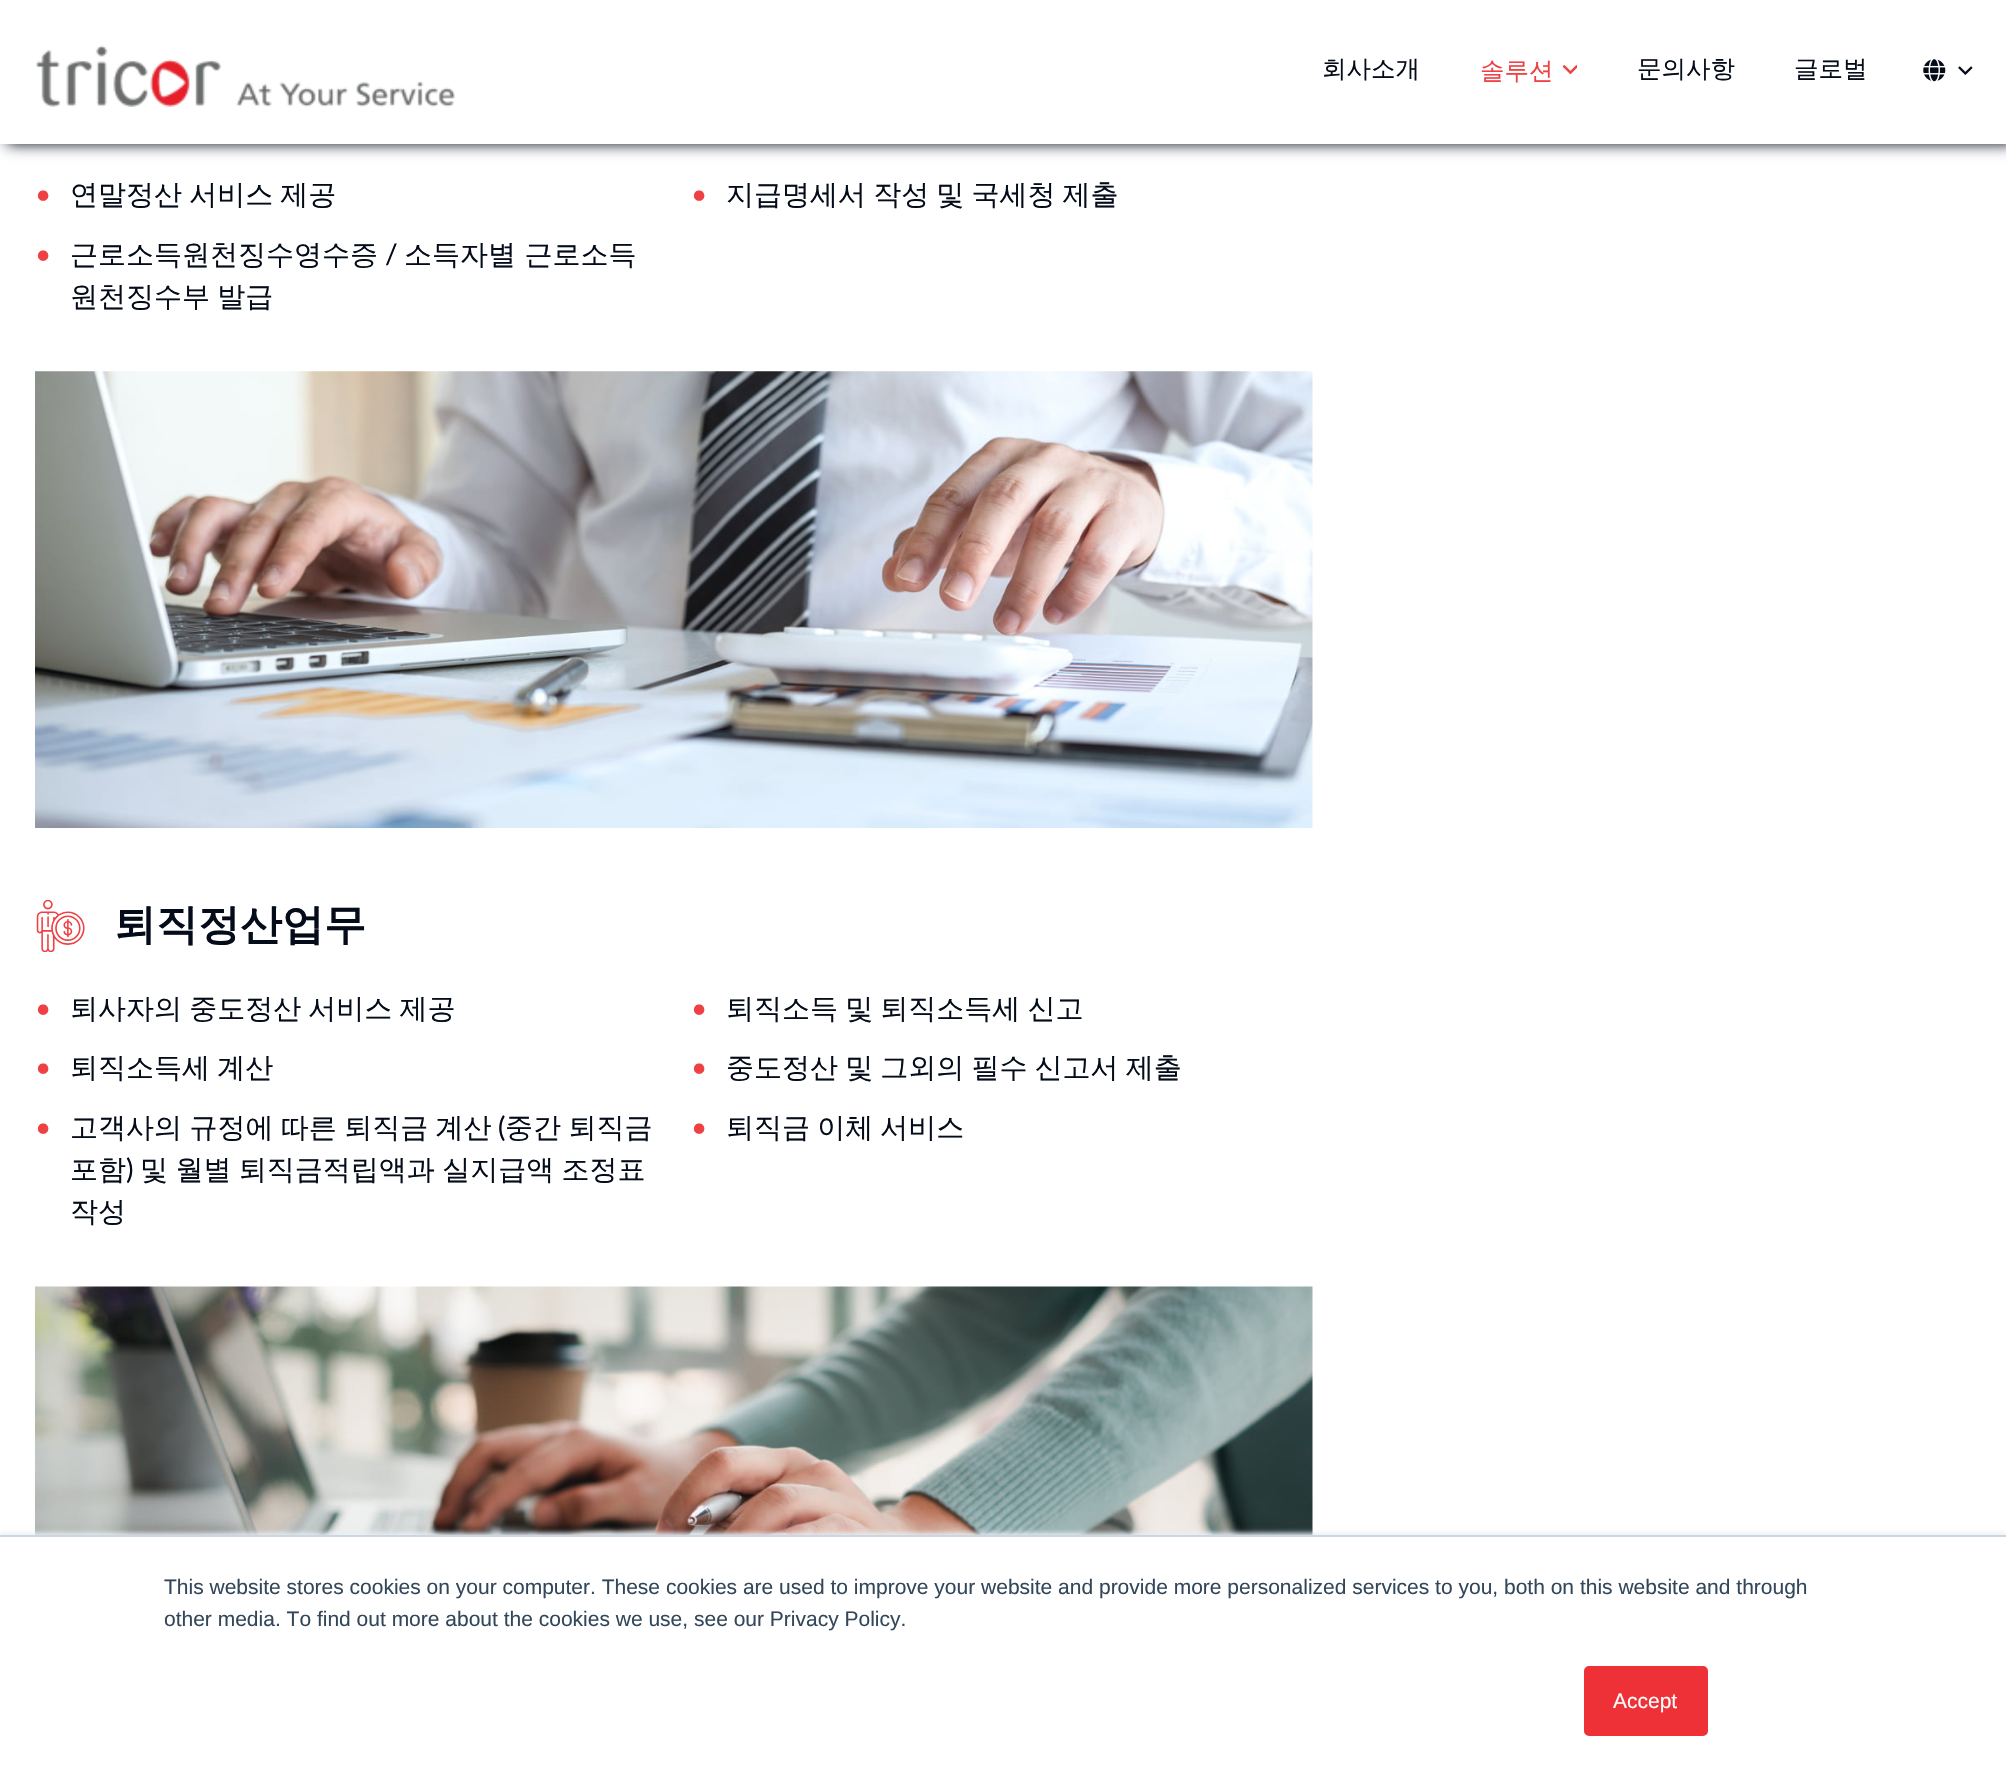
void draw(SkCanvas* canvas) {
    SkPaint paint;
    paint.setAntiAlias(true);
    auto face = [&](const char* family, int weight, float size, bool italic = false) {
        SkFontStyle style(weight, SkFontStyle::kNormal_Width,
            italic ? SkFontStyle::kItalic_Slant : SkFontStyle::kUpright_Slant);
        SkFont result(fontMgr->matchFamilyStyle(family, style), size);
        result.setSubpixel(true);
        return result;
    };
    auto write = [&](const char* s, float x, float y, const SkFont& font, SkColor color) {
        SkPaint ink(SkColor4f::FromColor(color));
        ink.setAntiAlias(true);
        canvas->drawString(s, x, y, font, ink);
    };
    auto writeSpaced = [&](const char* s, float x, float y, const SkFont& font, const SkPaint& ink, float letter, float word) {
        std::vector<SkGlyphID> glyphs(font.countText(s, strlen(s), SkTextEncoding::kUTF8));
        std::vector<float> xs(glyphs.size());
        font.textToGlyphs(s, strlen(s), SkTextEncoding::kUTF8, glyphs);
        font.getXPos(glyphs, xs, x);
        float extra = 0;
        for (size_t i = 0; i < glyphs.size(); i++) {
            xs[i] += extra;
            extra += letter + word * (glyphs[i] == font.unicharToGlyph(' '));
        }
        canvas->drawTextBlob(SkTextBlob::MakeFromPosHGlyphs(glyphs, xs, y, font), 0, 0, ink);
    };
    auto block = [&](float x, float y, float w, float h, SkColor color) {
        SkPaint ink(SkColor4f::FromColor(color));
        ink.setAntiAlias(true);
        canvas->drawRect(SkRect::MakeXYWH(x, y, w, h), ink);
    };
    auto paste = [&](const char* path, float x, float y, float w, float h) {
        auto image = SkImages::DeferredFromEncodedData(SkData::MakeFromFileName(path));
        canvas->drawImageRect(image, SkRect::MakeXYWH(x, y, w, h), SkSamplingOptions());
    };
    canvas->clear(SK_ColorWHITE);
    paint.setColor(SkColorSetRGB(4, 11, 25));
    paint.setMaskFilter(SkMaskFilter::MakeBlur(kNormal_SkBlurStyle, 7));
    canvas->drawRect(SkRect::MakeXYWH(7, 0, 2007, 144), paint);
    paint.setMaskFilter(nullptr);
    block(0, 0, 2006, 144, SK_ColorWHITE);
    paste("pic1.png", 36, 45, 419, 62);
    auto kFont1 = face("WenQuanYi Zen Hei", 500, 24.5f);
    write("회사소개", 1322, 77, kFont1, SkColorSetRGB(4, 11, 25));
    write("솔루션", 1480, 79, kFont1, SkColorSetRGB(239, 64, 67));
    paste("pic2.png", 1562, 65, 15, 10);
    write("문의사항", 1637, 77, kFont1, SkColorSetRGB(4, 11, 25));
    write("글로벌", 1794, 77, kFont1, SkColorSetRGB(4, 11, 25));
    paste("pic3.png", 1923, 59, 23, 23);
    paste("pic4.png", 1958, 66, 15, 9);
    auto kFont2 = face("Lato", 400, 28);
    write("•", 35, 204, kFont2, SkColorSetRGB(239, 64, 67));
    auto kFont3 = face("WenQuanYi Zen Hei", 500, 28);
    writeSpaced("연말정산 서비스 제공", 70, 204, kFont3, paint, 0, -1.25f);
    write("•", 691, 204, kFont2, SkColorSetRGB(239, 64, 67));
    writeSpaced("지급명세서 작성 및 국세청 제출", 726, 204, kFont3, paint, 0, -1.25f);
    write("•", 35, 264, kFont2, SkColorSetRGB(239, 64, 67));
    write("근로소득원천징수영수증", 70, 264, kFont3, SkColorSetRGB(4, 11, 25));
    write("/", 385, 264, kFont2, SkColorSetRGB(4, 11, 25));
    write("소득자별 근로소득", 404, 264, kFont3, SkColorSetRGB(4, 11, 25));
    writeSpaced("원천징수부 발급", 70, 306, kFont3, paint, 0, -1.25f);
    paste("pic5.png", 35, 371, 1278, 457);
    paste("pic6.png", 36, 900, 49, 52);
    auto kFont4 = face("WenQuanYi Zen Hei", 700, 42);
    write("퇴직정산업무", 114, 939, kFont4, SkColorSetRGB(4, 11, 25));
    write("•", 35, 1018, kFont2, SkColorSetRGB(239, 64, 67));
    writeSpaced("퇴사자의 중도정산 서비스 제공", 70, 1018, kFont3, paint, 0, -1.25f);
    write("•", 691, 1018, kFont2, SkColorSetRGB(239, 64, 67));
    writeSpaced("퇴직소득 및 퇴직소득세 신고", 726, 1018, kFont3, paint, 0, -1.25f);
    write("•", 35, 1077, kFont2, SkColorSetRGB(239, 64, 67));
    writeSpaced("퇴직소득세 계산", 70, 1077, kFont3, paint, 0, -1.25f);
    write("•", 691, 1077, kFont2, SkColorSetRGB(239, 64, 67));
    writeSpaced("중도정산 및 그외의 필수 신고서 제출", 726, 1077, kFont3, paint, 0, -1.25f);
    write("•", 35, 1137, kFont2, SkColorSetRGB(239, 64, 67));
    writeSpaced("고객사의 규정에 따른 퇴직금 계산", 70, 1137, kFont3, paint, 0, -1);
    write("(", 498, 1137, kFont2, SkColorSetRGB(4, 11, 25));
    writeSpaced("중간 퇴직금", 505, 1137, kFont3, paint, 0, -1);
    write("포함", 70, 1179, kFont3, SkColorSetRGB(4, 11, 25));
    write(")", 126, 1179, kFont2, SkColorSetRGB(4, 11, 25));
    writeSpaced("및 월별 퇴직금적립액과 실지급액 조정표", 140, 1179, kFont3, paint, 0, -1);
    write("작성", 70, 1221, kFont3, SkColorSetRGB(4, 11, 25));
    write("•", 691, 1137, kFont2, SkColorSetRGB(239, 64, 67));
    writeSpaced("퇴직금 이체 서비스", 726, 1137, kFont3, paint, 0, -1.25f);
    paste("pic7.png", 35, 1286, 1278, 249);
    paint.setColor(SkColorSetRGB(234, 240, 246));
    paint.setMaskFilter(SkMaskFilter::MakeBlur(kNormal_SkBlurStyle, 2.5f));
    canvas->drawRect(SkRect::MakeXYWH(0, 1533, 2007, 247), paint);
    paint.setMaskFilter(nullptr);
    block(0, 1537, 2006, 244, SK_ColorWHITE);
    block(0, 1535, 2006, 2, SkColorSetRGB(203, 214, 226));
    auto kFont5 = face("Liberation Sans", 400, 21);
    write("This website stores cookies on your computer. These cookies are used to improve your website and provide more personalized services to you, both on this website and through", 164, 1594, kFont5, SkColorSetRGB(51, 71, 91));
    write("other media. To find out more about the cookies we use, see our Privacy Policy.", 164, 1626, kFont5, SkColorSetRGB(51, 71, 91));
    paint.setColor(SkColorSetRGB(237, 49, 55));
    canvas->drawRoundRect(SkRect::MakeXYWH(1585, 1667, 122, 68), 4, 4, paint);
    paint.setStyle(SkPaint::kStroke_Style);
    paint.setStrokeWidth(2);
    canvas->drawRoundRect(SkRect::MakeXYWH(1585, 1667, 122, 68), 4, 4, paint);
    write("Accept", 1613, 1708, kFont5, SK_ColorWHITE);
}
